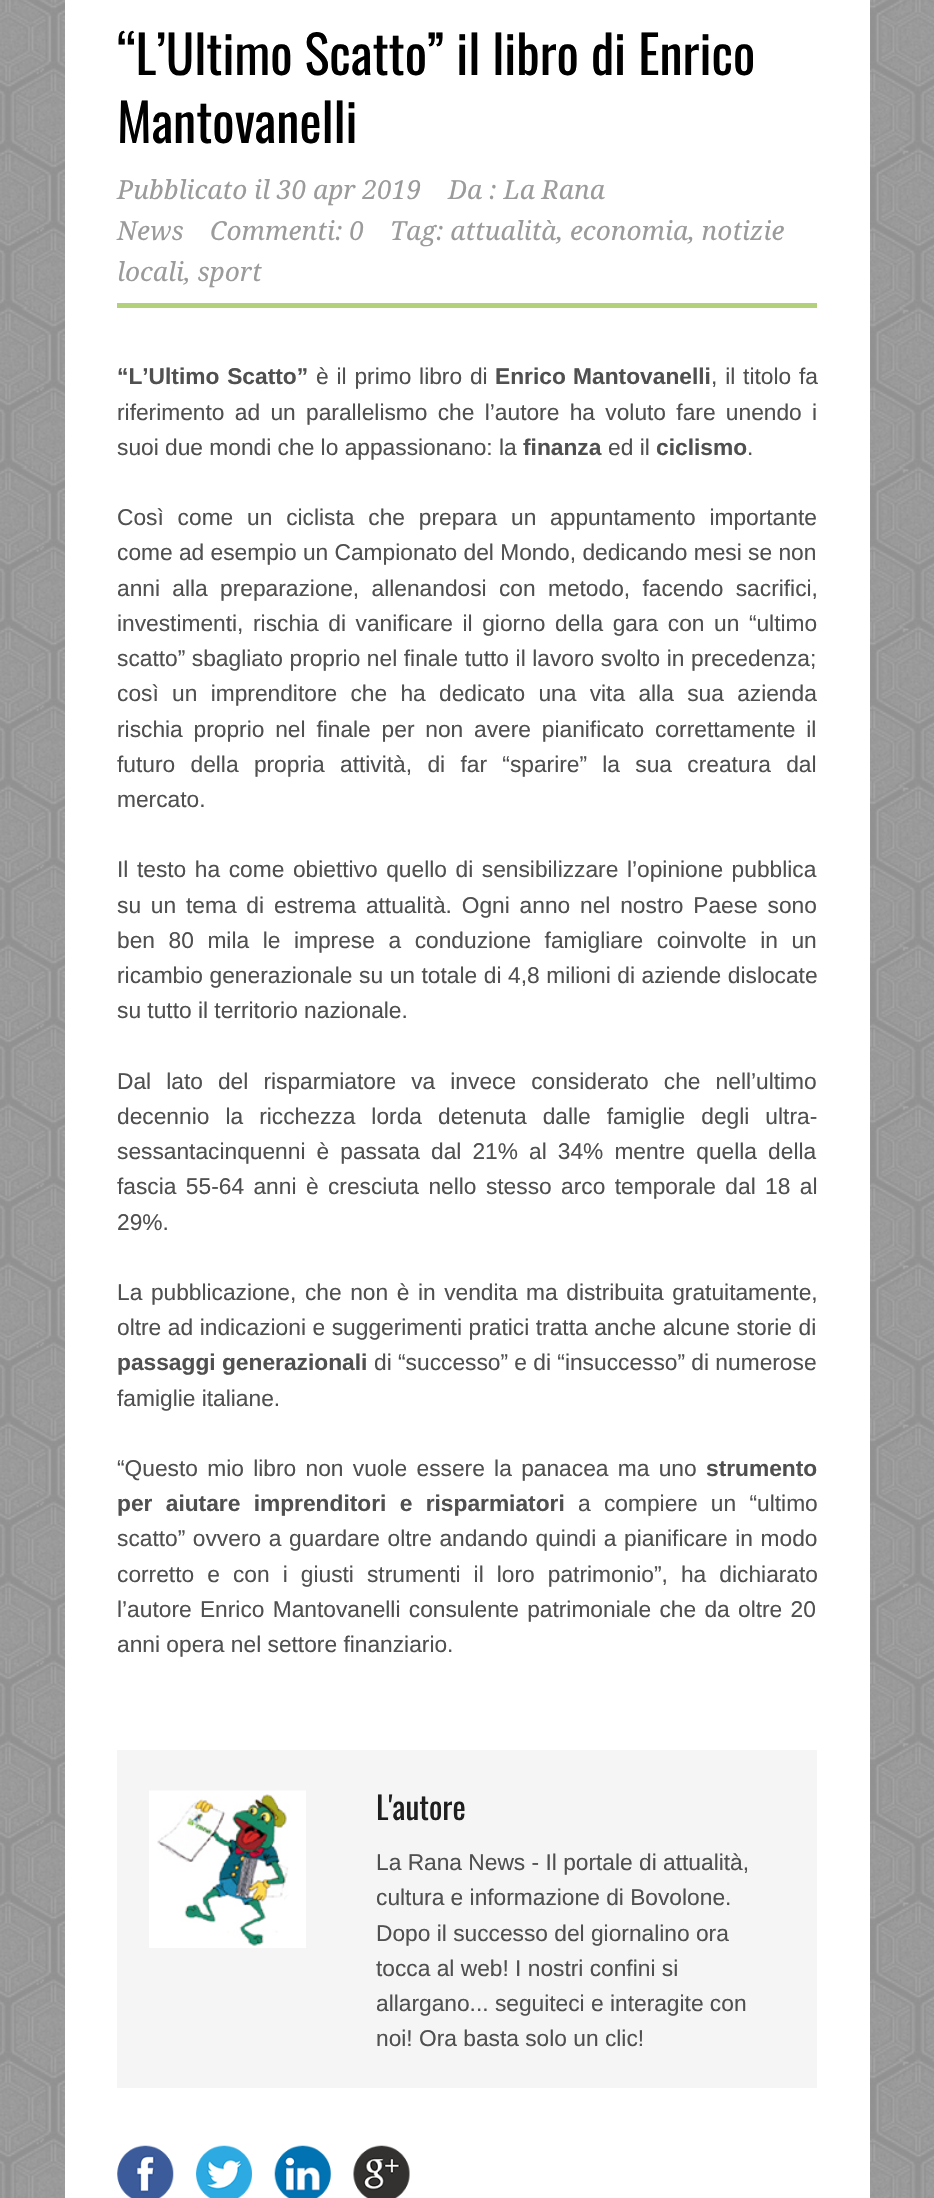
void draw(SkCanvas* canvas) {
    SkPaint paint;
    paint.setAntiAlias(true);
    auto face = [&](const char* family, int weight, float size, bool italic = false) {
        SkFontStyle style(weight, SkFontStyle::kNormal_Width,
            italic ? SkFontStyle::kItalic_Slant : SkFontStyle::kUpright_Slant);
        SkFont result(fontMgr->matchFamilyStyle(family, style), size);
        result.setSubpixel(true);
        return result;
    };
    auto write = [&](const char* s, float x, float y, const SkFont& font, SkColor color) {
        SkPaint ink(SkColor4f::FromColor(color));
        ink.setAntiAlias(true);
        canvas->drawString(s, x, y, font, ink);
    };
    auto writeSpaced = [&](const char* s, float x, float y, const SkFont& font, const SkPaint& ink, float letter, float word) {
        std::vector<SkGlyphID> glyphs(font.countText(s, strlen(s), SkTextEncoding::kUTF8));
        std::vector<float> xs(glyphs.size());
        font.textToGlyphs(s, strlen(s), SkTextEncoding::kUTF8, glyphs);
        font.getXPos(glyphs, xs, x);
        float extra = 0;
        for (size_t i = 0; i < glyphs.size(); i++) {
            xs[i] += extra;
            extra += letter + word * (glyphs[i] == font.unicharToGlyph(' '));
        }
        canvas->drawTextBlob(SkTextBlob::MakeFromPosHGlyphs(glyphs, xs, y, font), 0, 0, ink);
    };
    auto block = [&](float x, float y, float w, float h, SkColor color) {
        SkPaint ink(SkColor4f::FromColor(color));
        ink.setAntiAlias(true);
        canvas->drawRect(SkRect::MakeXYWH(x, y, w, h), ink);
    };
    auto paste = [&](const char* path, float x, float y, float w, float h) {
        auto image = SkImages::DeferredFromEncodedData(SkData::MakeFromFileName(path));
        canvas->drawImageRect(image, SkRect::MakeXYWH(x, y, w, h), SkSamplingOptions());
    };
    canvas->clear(SK_ColorWHITE);
    paste("pic1.png", 0, 0, 934, 2198);
    block(65, 0, 805, 2198, SK_ColorWHITE);
    auto kFont1 = face("Oswald", 400, 52.5f);
    write("“L’Ultimo Scatto” il libro di Enrico", 117, 75, kFont1, SK_ColorBLACK);
    write("Mantovanelli", 117, 143, kFont1, SK_ColorBLACK);
    block(117, 303, 700, 5, SkColorSetRGB(179, 209, 122));
    auto kFont2 = face("Droid Serif", 400, 26.25f, true);
    write("Pubblicato il 30 apr 2019", 117, 199, kFont2, SkColorSetRGB(155, 155, 155));
    write("Da : La Rana", 448, 199, kFont2, SkColorSetRGB(155, 155, 155));
    write("News", 117, 240, kFont2, SkColorSetRGB(155, 155, 155));
    write("Commenti: 0", 210, 240, kFont2, SkColorSetRGB(155, 155, 155));
    write("Tag: attualità, economia, notizie", 390, 240, kFont2, SkColorSetRGB(155, 155, 155));
    write("locali, sport", 117, 281, kFont2, SkColorSetRGB(155, 155, 155));
    auto kFont3 = face("Liberation Sans", 700, 22.75f);
    paint.setColor(SkColorSetRGB(80, 80, 80));
    writeSpaced("“L’Ultimo Scatto”", 117, 384, kFont3, paint, 0, 1.5f);
    auto kFont4 = face("Liberation Sans", 400, 22.75f);
    writeSpaced("è il primo libro di", 316, 384, kFont4, paint, 0, 1.5f);
    writeSpaced("Enrico Mantovanelli", 495, 384, kFont3, paint, 0, 1);
    writeSpaced(", il titolo fa", 711, 384, kFont4, paint, 0, 1.5f);
    writeSpaced("riferimento ad un parallelismo che l’autore ha voluto fare unendo i", 117, 420, kFont4, paint, 0, 4);
    write("suoi due mondi che lo appassionano: la", 117, 455, kFont4, SkColorSetRGB(80, 80, 80));
    write("finanza", 523, 455, kFont3, SkColorSetRGB(80, 80, 80));
    write("ed il", 608, 455, kFont4, SkColorSetRGB(80, 80, 80));
    write("ciclismo", 656, 455, kFont3, SkColorSetRGB(80, 80, 80));
    write(".", 747, 455, kFont4, SkColorSetRGB(80, 80, 80));
    writeSpaced("Così come un ciclista che prepara un appuntamento importante", 117, 525, kFont4, paint, 0, 7.5f);
    write("come ad esempio un Campionato del Mondo, dedicando mesi se non", 117, 560, kFont4, SkColorSetRGB(80, 80, 80));
    writeSpaced("anni alla preparazione, allenandosi con metodo, facendo sacrifici,", 117, 596, kFont4, paint, 0, 6);
    writeSpaced("investimenti, rischia di vanificare il giorno della gara con un “ultimo", 117, 631, kFont4, paint, 0, 3.25f);
    writeSpaced("scatto” sbagliato proprio nel finale tutto il lavoro svolto in precedenza;", 117, 666, kFont4, paint, 0, 0.25f);
    writeSpaced("così un imprenditore che ha dedicato una vita alla sua azienda", 117, 701, kFont4, paint, 0, 7);
    writeSpaced("rischia proprio nel finale per non avere pianificato correttamente il", 117, 737, kFont4, paint, 0, 4.5f);
    writeSpaced("futuro della propria attività, di far “sparire” la sua creatura dal", 117, 772, kFont4, paint, 0, 9);
    write("mercato.", 117, 807, kFont4, SkColorSetRGB(80, 80, 80));
    writeSpaced("Il testo ha come obiettivo quello di sensibilizzare l’opinione pubblica", 117, 877, kFont4, paint, 0, 2.25f);
    writeSpaced("su un tema di estrema attualità. Ogni anno nel nostro Paese sono", 117, 913, kFont4, paint, 0, 3.5f);
    writeSpaced("ben 80 mila le imprese a conduzione famigliare coinvolte in un", 117, 948, kFont4, paint, 0, 7.25f);
    writeSpaced("ricambio generazionale su un totale di 4,8 milioni di aziende dislocate", 117, 983, kFont4, paint, 0, 0.25f);
    write("su tutto il territorio nazionale.", 117, 1018, kFont4, SkColorSetRGB(80, 80, 80));
    writeSpaced("Dal lato del risparmiatore va invece considerato che nell’ultimo", 117, 1089, kFont4, paint, 0, 8.75f);
    writeSpaced("decennio la ricchezza lorda detenuta dalle famiglie degli ultra-", 117, 1124, kFont4, paint, 0, 9.75f);
    writeSpaced("sessantacinquenni è passata dal 21% al 34% mentre quella della", 117, 1159, kFont4, paint, 0, 4.75f);
    writeSpaced("fascia 55-64 anni è cresciuta nello stesso arco temporale dal 18 al", 117, 1194, kFont4, paint, 0, 3.1f);
    write("29%.", 117, 1230, kFont4, SkColorSetRGB(80, 80, 80));
    writeSpaced("La pubblicazione, che non è in vendita ma distribuita gratuitamente,", 117, 1300, kFont4, paint, 0, 2.25f);
    writeSpaced("oltre ad indicazioni e suggerimenti pratici tratta anche alcune storie di", 117, 1335, kFont4, paint, 0, 0.25f);
    write("passaggi generazionali", 117, 1370, kFont3, SkColorSetRGB(80, 80, 80));
    write("di “successo” e di “insuccesso” di numerose", 374, 1370, kFont4, SkColorSetRGB(80, 80, 80));
    write("famiglie italiane.", 117, 1406, kFont4, SkColorSetRGB(80, 80, 80));
    writeSpaced("“Questo mio libro non vuole essere la panacea ma uno", 117, 1476, kFont4, paint, 0, 3);
    write("strumento", 706, 1476, kFont3, SkColorSetRGB(80, 80, 80));
    writeSpaced("per aiutare imprenditori e risparmiatori", 117, 1511, kFont3, paint, 0, 7);
    writeSpaced("a compiere un “ultimo", 578, 1511, kFont4, paint, 0, 7);
    writeSpaced("scatto” ovvero a guardare oltre andando quindi a pianificare in modo", 117, 1546, kFont4, paint, 0, 1.25f);
    writeSpaced("corretto e con i giusti strumenti il loro patrimonio”, ha dichiarato", 117, 1582, kFont4, paint, 0, 6.75f);
    writeSpaced("l’autore Enrico Mantovanelli consulente patrimoniale che da oltre 20", 117, 1617, kFont4, paint, 0, 2);
    write("anni opera nel settore finanziario.", 117, 1652, kFont4, SkColorSetRGB(80, 80, 80));
    block(117, 1750, 700, 338, SkColorSetRGB(245, 245, 245));
    paste("pic2.png", 149, 1790, 157, 158);
    auto kFont5 = face("Oswald", 400, 31.5f);
    write("L'autore", 376, 1820, kFont5, SkColorSetRGB(31, 31, 31));
    write("La Rana News - Il portale di attualità,", 376, 1870, kFont4, SkColorSetRGB(80, 80, 80));
    write("cultura e informazione di Bovolone.", 376, 1905, kFont4, SkColorSetRGB(80, 80, 80));
    write("Dopo il successo del giornalino ora", 376, 1941, kFont4, SkColorSetRGB(80, 80, 80));
    write("tocca al web! I nostri confini si", 376, 1976, kFont4, SkColorSetRGB(80, 80, 80));
    write("allargano... seguiteci e interagite con", 376, 2011, kFont4, SkColorSetRGB(80, 80, 80));
    write("noi! Ora basta solo un clic!", 376, 2046, kFont4, SkColorSetRGB(80, 80, 80));
    paste("pic3.png", 117, 2145, 57, 53);
    paste("pic4.png", 196, 2145, 56, 53);
    paste("pic5.png", 274, 2145, 57, 53);
    paste("pic6.png", 353, 2145, 57, 53);
}
